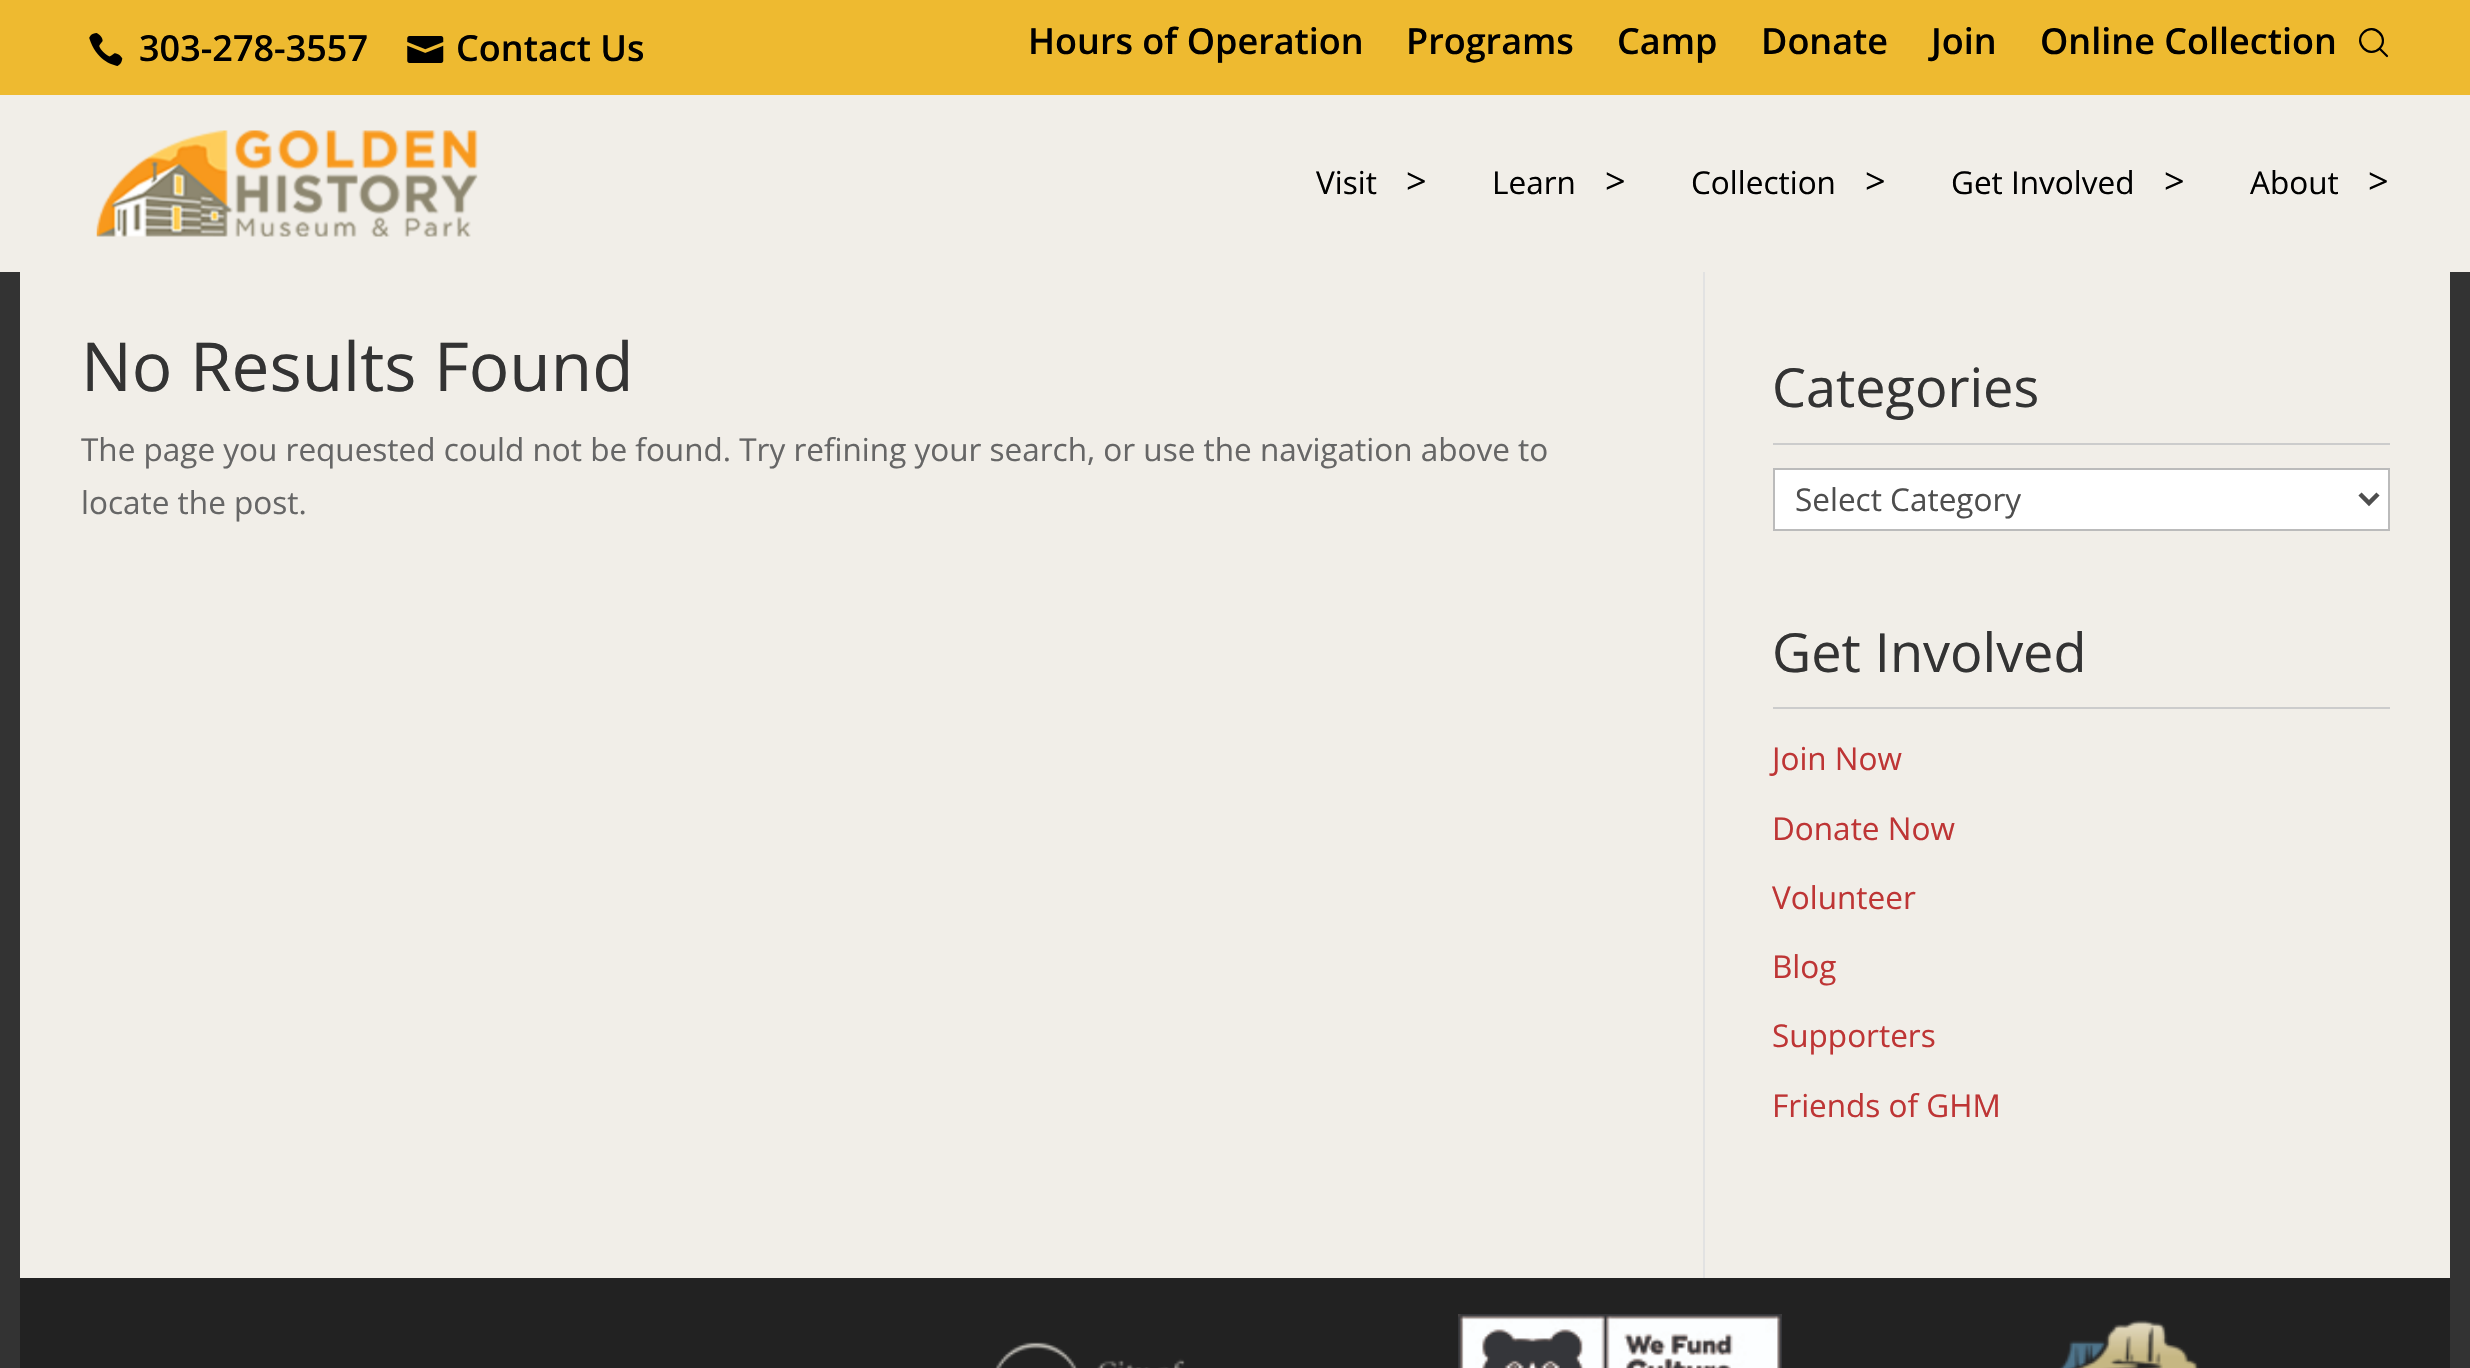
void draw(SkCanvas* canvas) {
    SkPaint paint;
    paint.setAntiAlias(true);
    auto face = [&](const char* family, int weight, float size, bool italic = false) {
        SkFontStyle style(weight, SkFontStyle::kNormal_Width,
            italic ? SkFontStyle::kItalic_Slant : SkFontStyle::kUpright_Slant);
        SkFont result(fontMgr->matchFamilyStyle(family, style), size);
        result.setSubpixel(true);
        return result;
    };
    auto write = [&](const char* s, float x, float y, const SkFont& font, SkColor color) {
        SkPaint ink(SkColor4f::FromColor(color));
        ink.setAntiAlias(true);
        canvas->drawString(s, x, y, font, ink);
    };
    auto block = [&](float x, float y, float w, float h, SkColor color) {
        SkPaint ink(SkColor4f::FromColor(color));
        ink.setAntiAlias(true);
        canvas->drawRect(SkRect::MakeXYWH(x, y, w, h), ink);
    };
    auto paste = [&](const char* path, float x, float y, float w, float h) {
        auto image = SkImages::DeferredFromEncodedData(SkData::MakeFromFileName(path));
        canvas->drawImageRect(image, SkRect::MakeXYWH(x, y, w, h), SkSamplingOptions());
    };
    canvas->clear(SkColorSetRGB(51, 51, 51));
    block(0, 95, 2470, 177, SkColorSetRGB(241, 238, 232));
    block(0, 0, 2470, 95, SkColorSetRGB(238, 186, 48));
    paste("pic1.png", 89, 33, 34, 33);
    auto kFont1 = face("Open Sans", 600, 36);
    write("303-278-3557", 139, 61, kFont1, SK_ColorBLACK);
    paste("pic2.png", 407, 36, 37, 27);
    write("Contact Us", 456, 61, kFont1, SK_ColorBLACK);
    write("Hours of Operation", 1028, 54, kFont1, SK_ColorBLACK);
    write("Programs", 1406, 54, kFont1, SK_ColorBLACK);
    write("Camp", 1617, 54, kFont1, SK_ColorBLACK);
    write("Donate", 1761, 54, kFont1, SK_ColorBLACK);
    write("Join", 1931, 54, kFont1, SK_ColorBLACK);
    write("Online Collection", 2040, 54, kFont1, SK_ColorBLACK);
    paint.setStyle(SkPaint::kStroke_Style);
    paint.setStrokeWidth(2.2f);
    paint.setStrokeCap(SkPaint::kRound_Cap);
    paint.setStrokeJoin(SkPaint::kRound_Join);
    paint.setColor(SK_ColorBLACK);
    canvas->drawPath(SkPathBuilder().moveTo(2387, 56).lineTo(2379.5f, 48.5f).moveTo(2379.5f, 48.5f).cubicTo(2390, 38, 2374, 22, 2363.5f, 32.5f).cubicTo(2353, 43, 2369, 59, 2379.5f, 48.5f).close().detach(), paint);
    paste("pic3.png", 96, 130, 382, 107);
    auto kFont2 = face("Open Sans", 400, 31.5f);
    write("Visit", 1316, 194, kFont2, SK_ColorBLACK);
    auto kFont3 = face("Open Sans", 400, 36);
    write(">", 1406, 194, kFont3, SK_ColorBLACK);
    write("Learn", 1492, 194, kFont2, SK_ColorBLACK);
    write(">", 1605, 194, kFont3, SK_ColorBLACK);
    write("Collection", 1691, 194, kFont2, SK_ColorBLACK);
    write(">", 1865, 194, kFont3, SK_ColorBLACK);
    write("Get Involved", 1951, 194, kFont2, SK_ColorBLACK);
    write(">", 2164, 194, kFont3, SK_ColorBLACK);
    write("About", 2250, 194, kFont2, SK_ColorBLACK);
    write(">", 2368, 194, kFont3, SK_ColorBLACK);
    block(20, 272, 2430, 1006, SkColorSetRGB(241, 238, 232));
    block(1703, 272, 2, 1006, SkColorSetRGB(226, 226, 226));
    auto kFont4 = face("Open Sans", 400, 67.5f);
    write("No Results Found", 81, 391, kFont4, SkColorSetRGB(51, 51, 51));
    write("The page you requested could not be found. Try refining your search, or use the navigation above to", 81, 461, kFont2, SkColorSetRGB(102, 102, 102));
    write("locate the post.", 81, 514, kFont2, SkColorSetRGB(102, 102, 102));
    block(1773, 443, 617, 2, SkColorSetRGB(204, 204, 204));
    auto kFont5 = face("Open Sans", 400, 54);
    write("Categories", 1772, 407, kFont5, SkColorSetRGB(51, 51, 51));
    paint.setStyle(SkPaint::kFill_Style);
    paint.setColor(SK_ColorWHITE);
    canvas->drawRect(SkRect::MakeXYWH(1774, 469, 615, 61), paint);
    paint.setStyle(SkPaint::kStroke_Style);
    paint.setStrokeWidth(2);
    paint.setStrokeCap(SkPaint::kButt_Cap);
    paint.setStrokeJoin(SkPaint::kMiter_Join);
    paint.setColor(SkColorSetRGB(187, 187, 187));
    canvas->drawRect(SkRect::MakeXYWH(1774, 469, 615, 61), paint);
    paint.setStrokeWidth(4.5f);
    paint.setColor(SkColorSetRGB(78, 78, 78));
    canvas->drawPath(SkPathBuilder().moveTo(2360, 494).lineTo(2369, 503).lineTo(2378, 494).detach(), paint);
    write("Select Category", 1795, 511, kFont2, SkColorSetRGB(78, 78, 78));
    block(1773, 707, 617, 2, SkColorSetRGB(204, 204, 204));
    write("Get Involved", 1772, 672, kFont5, SkColorSetRGB(51, 51, 51));
    write("Join Now", 1772, 770, kFont2, SkColorSetRGB(190, 53, 53));
    write("Donate Now", 1772, 840, kFont2, SkColorSetRGB(190, 53, 53));
    write("Volunteer", 1772, 909, kFont2, SkColorSetRGB(190, 53, 53));
    write("Blog", 1772, 978, kFont2, SkColorSetRGB(190, 53, 53));
    write("Supporters", 1772, 1047, kFont2, SkColorSetRGB(190, 53, 53));
    write("Friends of GHM", 1772, 1117, kFont2, SkColorSetRGB(190, 53, 53));
    block(20, 1278, 2430, 90, SkColorSetRGB(34, 34, 34));
    paste("pic4.png", 995, 1342, 190, 26);
    paste("pic5.png", 1458, 1314, 324, 54);
    paste("pic6.png", 2059, 1320, 140, 48);
}
